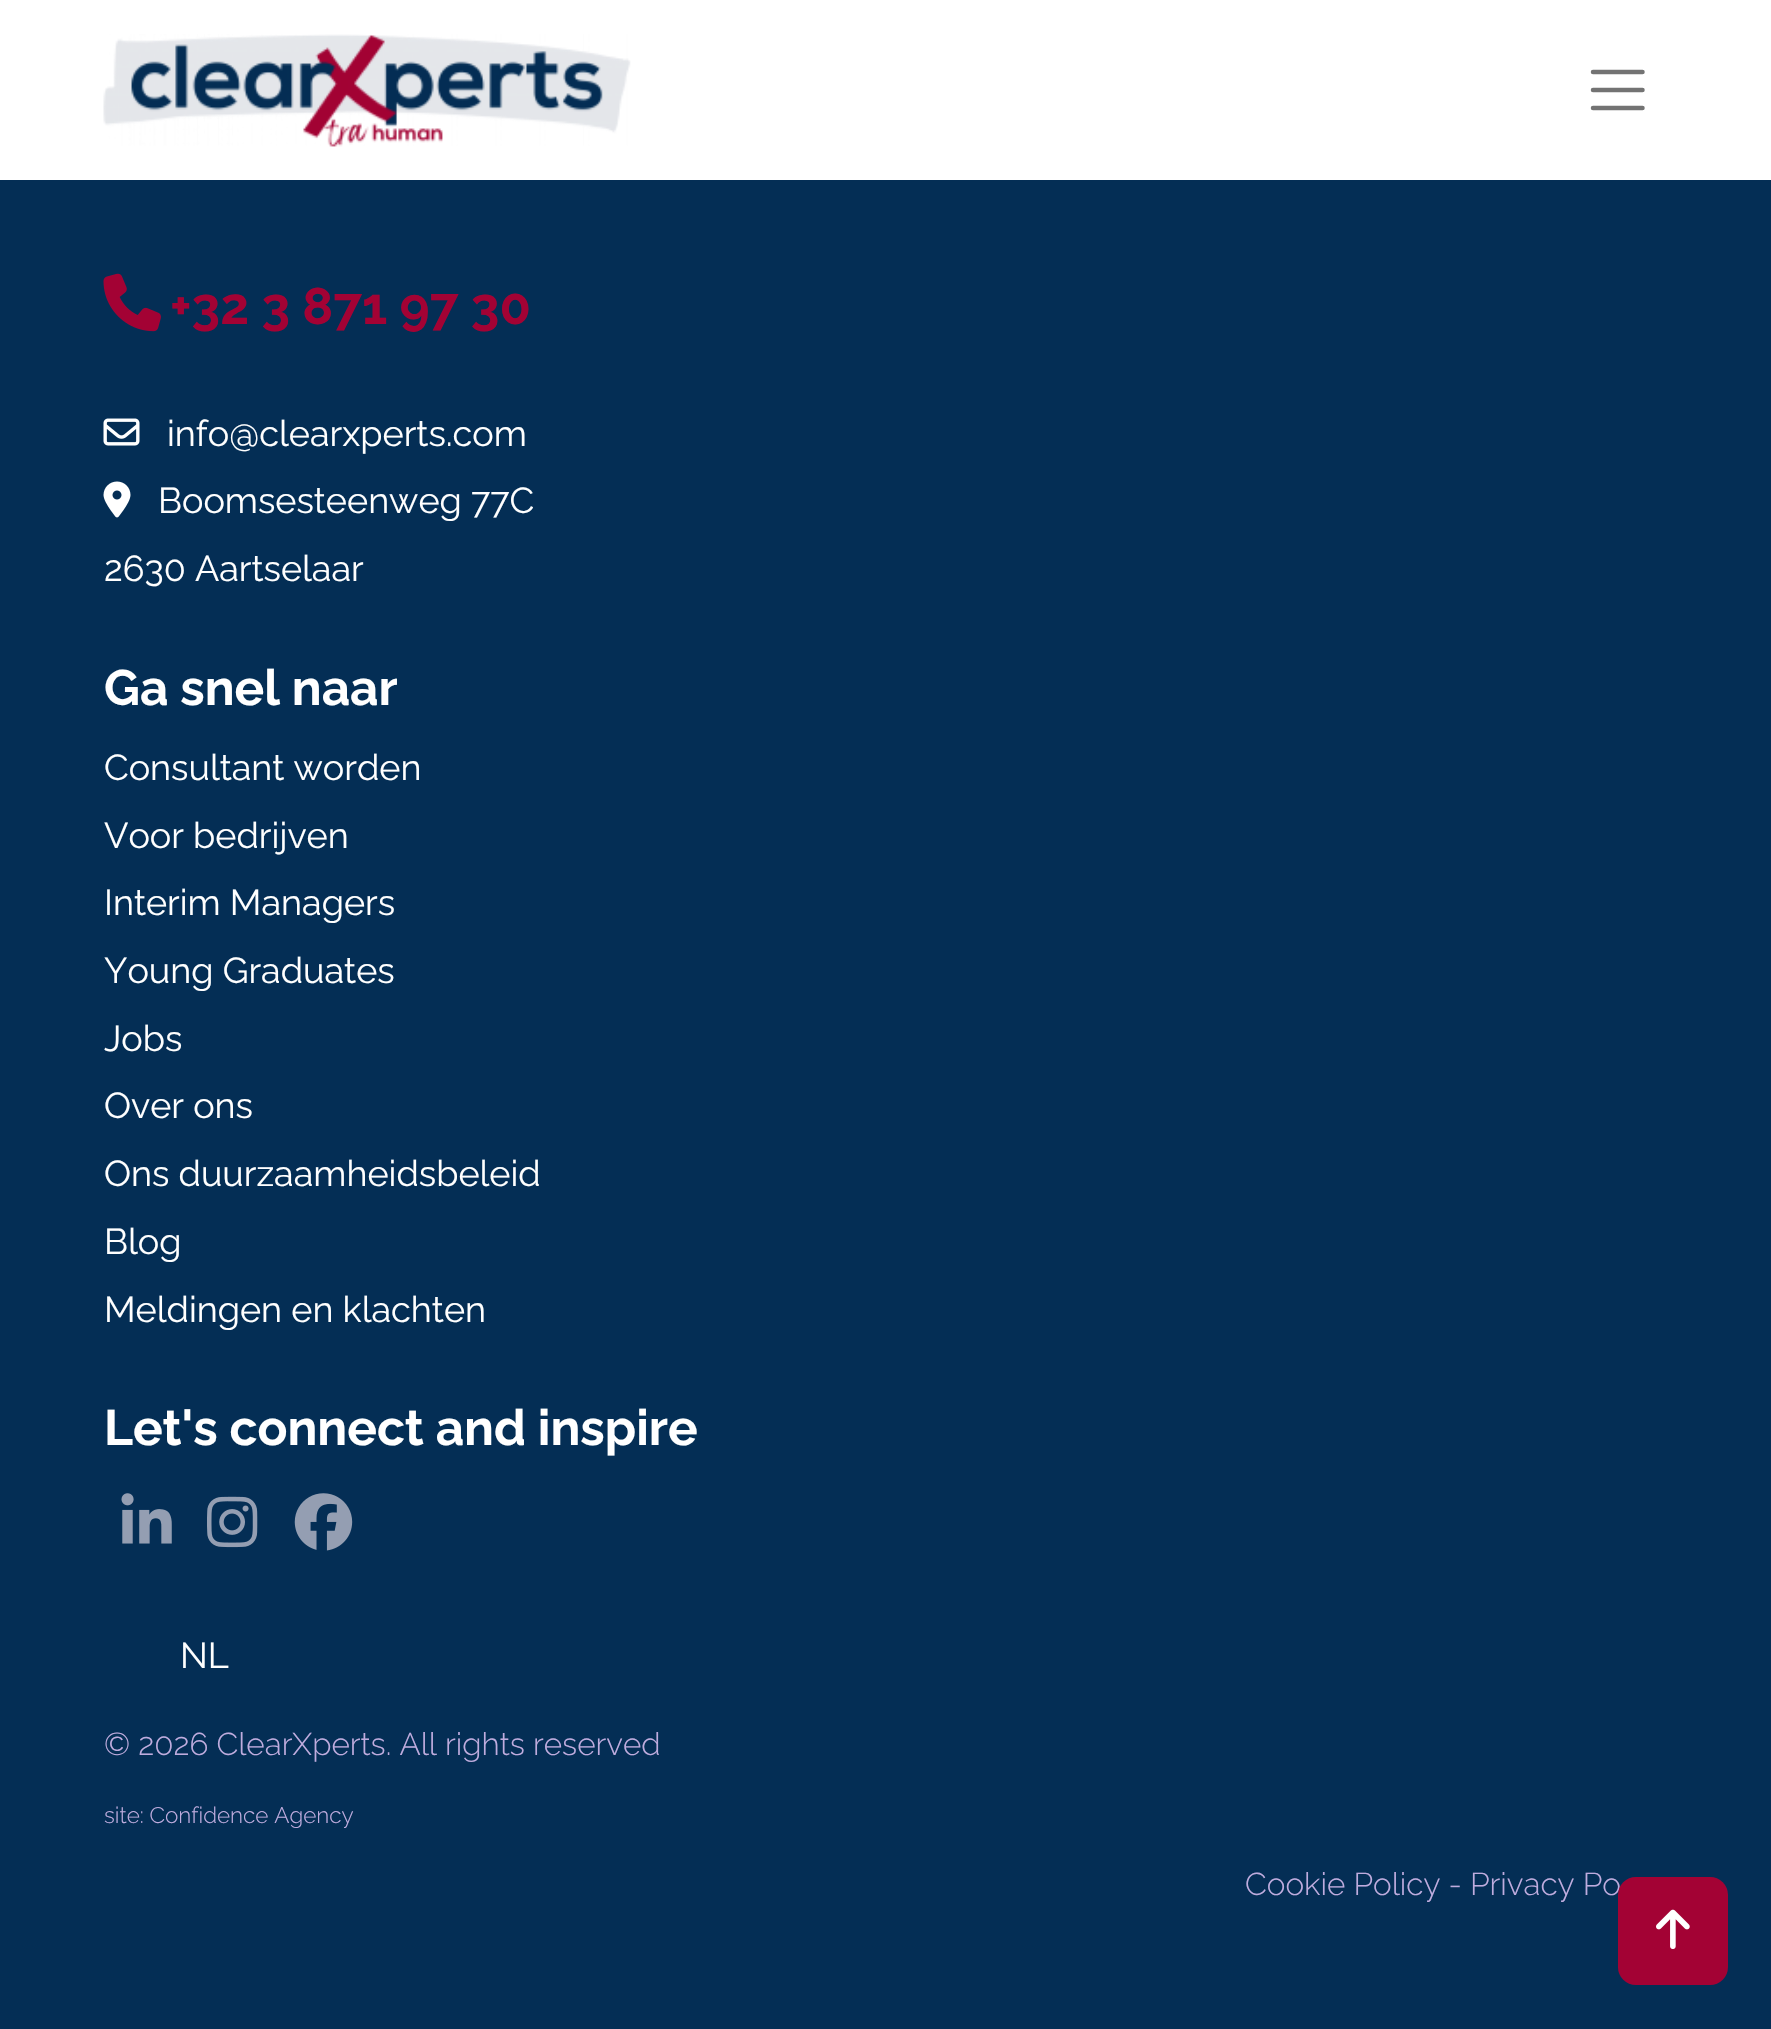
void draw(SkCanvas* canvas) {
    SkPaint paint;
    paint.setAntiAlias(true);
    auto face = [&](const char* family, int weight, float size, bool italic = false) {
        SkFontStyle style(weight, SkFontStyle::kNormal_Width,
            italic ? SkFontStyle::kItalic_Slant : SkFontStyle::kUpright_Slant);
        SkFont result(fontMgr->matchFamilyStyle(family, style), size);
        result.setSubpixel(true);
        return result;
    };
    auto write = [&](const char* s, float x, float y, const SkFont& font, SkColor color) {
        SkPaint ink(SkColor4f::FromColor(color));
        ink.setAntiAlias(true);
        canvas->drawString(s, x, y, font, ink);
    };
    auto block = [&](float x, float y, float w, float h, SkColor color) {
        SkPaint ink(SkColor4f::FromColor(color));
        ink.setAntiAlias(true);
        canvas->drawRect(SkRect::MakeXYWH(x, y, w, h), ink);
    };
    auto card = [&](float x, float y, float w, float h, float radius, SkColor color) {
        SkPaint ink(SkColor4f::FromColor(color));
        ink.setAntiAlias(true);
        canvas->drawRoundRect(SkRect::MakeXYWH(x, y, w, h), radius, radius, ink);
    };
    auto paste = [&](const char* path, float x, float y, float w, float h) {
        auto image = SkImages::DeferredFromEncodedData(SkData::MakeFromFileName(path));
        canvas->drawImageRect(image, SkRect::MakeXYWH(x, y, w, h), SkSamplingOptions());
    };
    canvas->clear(SkColorSetRGB(4, 46, 85));
    block(0, 0, 1771, 180, SK_ColorWHITE);
    paste("pic1.png", 103, 34, 528, 113);
    paint.setStyle(SkPaint::kStroke_Style);
    paint.setStrokeWidth(4.5f);
    paint.setStrokeCap(SkPaint::kRound_Cap);
    paint.setColor(SkColorSetRGB(115, 115, 115));
    canvas->drawPath(SkPathBuilder().moveTo(1593, 72).lineTo(1642.5f, 72).moveTo(1593, 90).lineTo(1642.5f, 90).moveTo(1593, 108).lineTo(1642.5f, 108).detach(), paint);
    paste("pic2.png", 103, 273, 58, 59);
    auto kFont1 = face("Raleway", 700, 51.25f);
    write("+32 3 871 97 30", 170, 324, kFont1, SkColorSetRGB(163, 2, 52));
    paste("pic3.png", 103, 418, 37, 28);
    auto kFont2 = face("Raleway", 400, 36);
    write("info@clearxperts.com", 167, 446, kFont2, SK_ColorWHITE);
    paste("pic4.png", 103, 481, 28, 37);
    write("Boomsesteenweg 77C", 158, 513, kFont2, SK_ColorWHITE);
    write("2630 Aartselaar", 104, 581, kFont2, SK_ColorWHITE);
    auto kFont3 = face("Raleway", 700, 49.5f);
    write("Ga snel naar", 104, 705, kFont3, SK_ColorWHITE);
    write("Consultant worden", 104, 780, kFont2, SK_ColorWHITE);
    write("Voor bedrijven", 104, 848, kFont2, SK_ColorWHITE);
    write("Interim Managers", 104, 915, kFont2, SK_ColorWHITE);
    write("Young Graduates", 104, 983, kFont2, SK_ColorWHITE);
    write("Jobs", 104, 1051, kFont2, SK_ColorWHITE);
    write("Over ons", 104, 1118, kFont2, SK_ColorWHITE);
    write("Ons duurzaamheidsbeleid", 104, 1186, kFont2, SK_ColorWHITE);
    write("Blog", 104, 1254, kFont2, SK_ColorWHITE);
    write("Meldingen en klachten", 104, 1322, kFont2, SK_ColorWHITE);
    write("Let's connect and inspire", 104, 1445, kFont3, SK_ColorWHITE);
    paste("pic5.png", 121, 1493, 51, 51);
    paste("pic6.png", 207, 1496, 51, 52);
    paste("pic7.png", 294, 1493, 59, 58);
    write("NL", 180, 1668, kFont2, SK_ColorWHITE);
    auto kFont4 = face("Raleway", 300, 31.5f);
    write("© 2026 ClearXperts. All rights reserved", 104, 1755, kFont4, SkColorSetRGB(191, 172, 222));
    auto kFont5 = face("Raleway", 300, 22.5f);
    write("site: Confidence Agency", 104, 1823, kFont5, SkColorSetRGB(191, 172, 222));
    write("Cookie Policy - Privacy Po", 1245, 1895, kFont4, SkColorSetRGB(191, 172, 222));
    card(1618, 1877, 110, 108, 18, SkColorSetRGB(163, 2, 52));
    paste("pic8.png", 1656, 1909, 34, 40);
}
